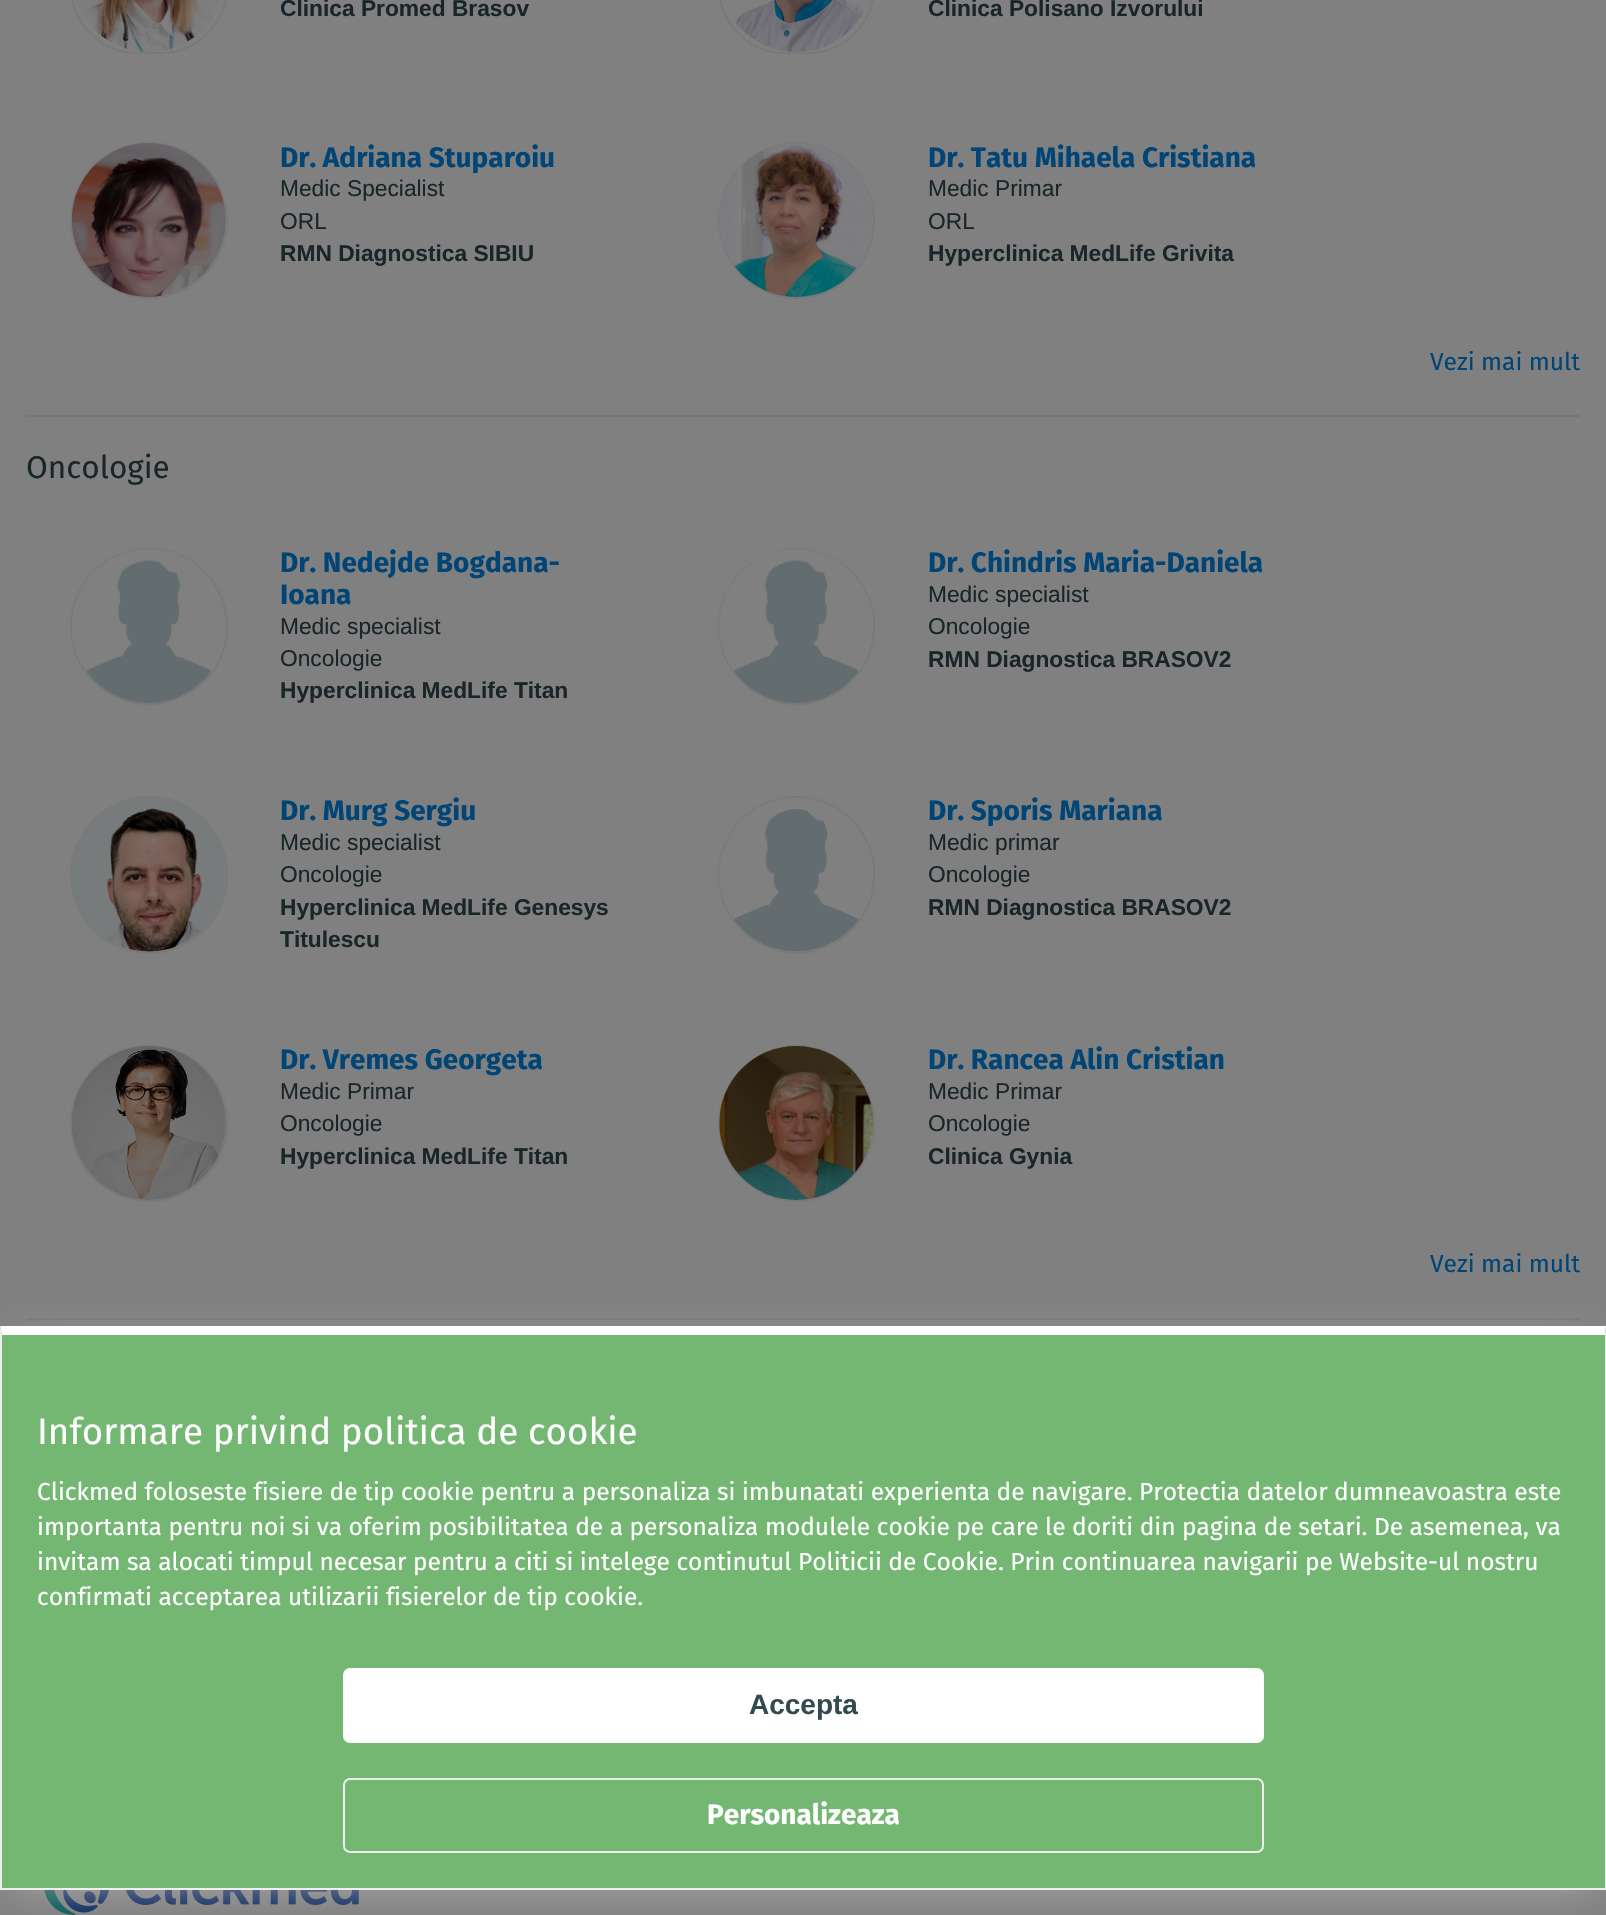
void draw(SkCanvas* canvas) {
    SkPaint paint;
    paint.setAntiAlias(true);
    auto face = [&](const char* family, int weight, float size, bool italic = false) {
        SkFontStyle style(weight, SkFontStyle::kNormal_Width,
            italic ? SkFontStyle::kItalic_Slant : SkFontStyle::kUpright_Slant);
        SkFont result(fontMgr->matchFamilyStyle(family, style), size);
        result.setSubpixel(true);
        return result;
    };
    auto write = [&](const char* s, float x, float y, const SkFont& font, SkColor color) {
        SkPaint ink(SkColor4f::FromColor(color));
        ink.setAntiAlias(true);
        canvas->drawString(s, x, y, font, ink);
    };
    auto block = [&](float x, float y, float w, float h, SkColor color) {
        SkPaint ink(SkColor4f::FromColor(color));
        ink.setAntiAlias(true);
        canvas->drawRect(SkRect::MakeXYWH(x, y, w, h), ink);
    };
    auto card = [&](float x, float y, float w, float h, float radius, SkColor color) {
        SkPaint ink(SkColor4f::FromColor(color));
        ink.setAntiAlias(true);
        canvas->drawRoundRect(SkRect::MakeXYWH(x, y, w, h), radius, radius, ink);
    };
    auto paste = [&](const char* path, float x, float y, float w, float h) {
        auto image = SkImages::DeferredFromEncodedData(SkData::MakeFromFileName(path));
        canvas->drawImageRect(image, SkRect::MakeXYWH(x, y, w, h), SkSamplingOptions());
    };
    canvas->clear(SkColorSetRGB(128, 128, 128));
    paint.setStyle(SkPaint::kStroke_Style);
    paint.setStrokeWidth(2);
    paint.setColor(SkColorSetRGB(121, 121, 121));
    canvas->drawRoundRect(SkRect::MakeXYWH(71, -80, 156, 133), 77.5f, 77.5f, paint);
    paste("pic1.png", 77, 0, 143, 52);
    auto kFont1 = face("Liberation Sans", 700, 22.75f);
    write("Clinica Promed Brasov", 280, 16, kFont1, SkColorSetRGB(25, 37, 40));
    canvas->drawRoundRect(SkRect::MakeXYWH(719, -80, 155, 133), 77.5f, 77.5f, paint);
    paste("pic2.png", 723, 0, 141, 52);
    write("Clinica Polisano Izvorului", 928, 16, kFont1, SkColorSetRGB(25, 37, 40));
    canvas->drawRoundRect(SkRect::MakeXYWH(71, 143, 156, 155), 77.5f, 77.5f, paint);
    paste("pic3.png", 71, 143, 155, 154);
    auto kFont2 = face("Fira Sans", 700, 28);
    write("Dr. Adriana Stuparoiu", 280, 167, kFont2, SkColorSetRGB(0, 69, 118));
    auto kFont3 = face("Liberation Sans", 400, 22.75f);
    write("Medic Specialist", 280, 196, kFont3, SkColorSetRGB(25, 37, 40));
    write("ORL", 280, 229, kFont3, SkColorSetRGB(25, 37, 40));
    write("RMN Diagnostica SIBIU", 280, 261, kFont1, SkColorSetRGB(25, 37, 40));
    canvas->drawCircle(796.5f, 220.5f, 77.5f, paint);
    paste("pic4.png", 719, 143, 154, 154);
    write("Dr. Tatu Mihaela Cristiana", 928, 167, kFont2, SkColorSetRGB(0, 69, 118));
    write("Medic Primar", 928, 196, kFont3, SkColorSetRGB(25, 37, 40));
    write("ORL", 928, 229, kFont3, SkColorSetRGB(25, 37, 40));
    write("Hyperclinica MedLife Grivita", 928, 261, kFont1, SkColorSetRGB(25, 37, 40));
    auto kFont4 = face("Fira Sans", 400, 24.5f);
    write("Vezi mai mult", 1430, 370, kFont4, SkColorSetRGB(0, 69, 118));
    block(26, 415, 1554, 2, SkColorSetRGB(119, 119, 119));
    auto kFont5 = face("Fira Sans", 400, 31.5f);
    write("Oncologie", 26, 478, kFont5, SkColorSetRGB(25, 37, 40));
    canvas->drawRoundRect(SkRect::MakeXYWH(71, 549, 156, 155), 77.5f, 77.5f, paint);
    paste("pic5.png", 72, 549, 142, 154);
    write("Dr. Nedejde Bogdana-", 280, 572, kFont2, SkColorSetRGB(0, 69, 118));
    write("Ioana", 280, 604, kFont2, SkColorSetRGB(0, 69, 118));
    write("Medic specialist", 280, 634, kFont3, SkColorSetRGB(25, 37, 40));
    write("Oncologie", 280, 666, kFont3, SkColorSetRGB(25, 37, 40));
    write("Hyperclinica MedLife Titan", 280, 698, kFont1, SkColorSetRGB(25, 37, 40));
    canvas->drawCircle(796.5f, 626.5f, 77.5f, paint);
    paste("pic6.png", 719, 549, 154, 154);
    write("Dr. Chindris Maria-Daniela", 928, 572, kFont2, SkColorSetRGB(0, 69, 118));
    write("Medic specialist", 928, 602, kFont3, SkColorSetRGB(25, 37, 40));
    write("Oncologie", 928, 634, kFont3, SkColorSetRGB(25, 37, 40));
    write("RMN Diagnostica BRASOV2", 928, 667, kFont1, SkColorSetRGB(25, 37, 40));
    canvas->drawCircle(149, 875, 78, paint);
    paste("pic7.png", 72, 798, 154, 154);
    write("Dr. Murg Sergiu", 280, 820, kFont2, SkColorSetRGB(0, 69, 118));
    write("Medic specialist", 280, 850, kFont3, SkColorSetRGB(25, 37, 40));
    write("Oncologie", 280, 882, kFont3, SkColorSetRGB(25, 37, 40));
    write("Hyperclinica MedLife Genesys", 280, 915, kFont1, SkColorSetRGB(25, 37, 40));
    write("Titulescu", 280, 947, kFont1, SkColorSetRGB(25, 37, 40));
    canvas->drawRoundRect(SkRect::MakeXYWH(719, 797, 155, 156), 77.5f, 77.5f, paint);
    paste("pic8.png", 719, 798, 154, 154);
    write("Dr. Sporis Mariana", 928, 820, kFont2, SkColorSetRGB(0, 69, 118));
    write("Medic primar", 928, 850, kFont3, SkColorSetRGB(25, 37, 40));
    write("Oncologie", 928, 882, kFont3, SkColorSetRGB(25, 37, 40));
    write("RMN Diagnostica BRASOV2", 928, 915, kFont1, SkColorSetRGB(25, 37, 40));
    canvas->drawRoundRect(SkRect::MakeXYWH(71, 1046, 156, 155), 77.5f, 77.5f, paint);
    paste("pic9.png", 72, 1046, 154, 154);
    write("Dr. Vremes Georgeta", 280, 1069, kFont2, SkColorSetRGB(0, 69, 118));
    write("Medic Primar", 280, 1099, kFont3, SkColorSetRGB(25, 37, 40));
    write("Oncologie", 280, 1131, kFont3, SkColorSetRGB(25, 37, 40));
    write("Hyperclinica MedLife Titan", 280, 1164, kFont1, SkColorSetRGB(25, 37, 40));
    canvas->drawCircle(796.5f, 1123.5f, 77.5f, paint);
    paste("pic10.png", 719, 1046, 155, 154);
    write("Dr. Rancea Alin Cristian", 928, 1069, kFont2, SkColorSetRGB(0, 69, 118));
    write("Medic Primar", 928, 1099, kFont3, SkColorSetRGB(25, 37, 40));
    write("Oncologie", 928, 1131, kFont3, SkColorSetRGB(25, 37, 40));
    write("Clinica Gynia", 928, 1164, kFont1, SkColorSetRGB(25, 37, 40));
    write("Vezi mai mult", 1430, 1272, kFont4, SkColorSetRGB(0, 69, 118));
    block(26, 1318, 1554, 2, SkColorSetRGB(119, 119, 119));
    paste("pic11.png", 44, 1890, 315, 25);
    paint.setStyle(SkPaint::kFill_Style);
    paint.setColor(SkColorSetRGB(178, 178, 178));
    paint.setMaskFilter(SkMaskFilter::MakeBlur(kNormal_SkBlurStyle, 22));
    canvas->drawRect(SkRect::MakeXYWH(14, 1349, 1579, 536), paint);
    paint.setMaskFilter(nullptr);
    block(2, 1335, 1603, 553, SkColorSetRGB(115, 183, 115));
    paint.setColor(SK_ColorWHITE);
    canvas->drawPath(SkPathBuilder().moveTo(0, 1326).lineTo(1606, 1326).lineTo(1605, 1335).lineTo(2, 1335).close().detach(), paint);
    paint.setColor(SkColorSetRGB(238, 238, 238));
    canvas->drawPath(SkPathBuilder().moveTo(1606, 1326).lineTo(1606, 1890).lineTo(1605, 1888).lineTo(1605, 1335).close().detach(), paint);
    block(0, 1888, 1606, 2, SkColorSetRGB(238, 238, 238));
    canvas->drawPath(SkPathBuilder().moveTo(0, 1890).lineTo(0, 1326).lineTo(2, 1335).lineTo(2, 1888).close().detach(), paint);
    auto kFont6 = face("Fira Sans", 400, 36.75f);
    write("Informare privind politica de cookie", 37, 1444, kFont6, SK_ColorWHITE);
    write("Clickmed foloseste fisiere de tip cookie pentru a personaliza si imbunatati experienta de navigare. Protectia datelor dumneavoastra este", 37, 1500, kFont4, SK_ColorWHITE);
    write("importanta pentru noi si va oferim posibilitatea de a personaliza modulele cookie pe care le doriti din pagina de setari. De asemenea, va", 37, 1535, kFont4, SK_ColorWHITE);
    write("invitam sa alocati timpul necesar pentru a citi si intelege continutul Politicii de Cookie. Prin continuarea navigarii pe Website-ul nostru", 37, 1570, kFont4, SK_ColorWHITE);
    write("confirmati acceptarea utilizarii fisierelor de tip cookie.", 37, 1605, kFont4, SK_ColorWHITE);
    card(343, 1668, 921, 75, 7, SK_ColorWHITE);
    auto kFont7 = face("Liberation Sans", 700, 28);
    write("Accepta", 749, 1714, kFont7, SkColorSetRGB(50, 74, 80));
    paint.setStyle(SkPaint::kStroke_Style);
    canvas->drawRoundRect(SkRect::MakeXYWH(344, 1779, 919, 73), 6, 6, paint);
    write("Personalizeaza", 707, 1824, kFont2, SK_ColorWHITE);
}
